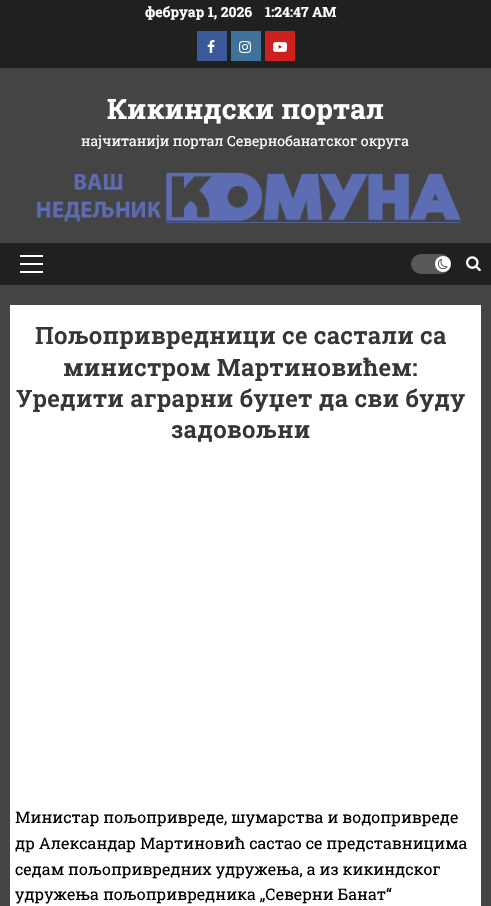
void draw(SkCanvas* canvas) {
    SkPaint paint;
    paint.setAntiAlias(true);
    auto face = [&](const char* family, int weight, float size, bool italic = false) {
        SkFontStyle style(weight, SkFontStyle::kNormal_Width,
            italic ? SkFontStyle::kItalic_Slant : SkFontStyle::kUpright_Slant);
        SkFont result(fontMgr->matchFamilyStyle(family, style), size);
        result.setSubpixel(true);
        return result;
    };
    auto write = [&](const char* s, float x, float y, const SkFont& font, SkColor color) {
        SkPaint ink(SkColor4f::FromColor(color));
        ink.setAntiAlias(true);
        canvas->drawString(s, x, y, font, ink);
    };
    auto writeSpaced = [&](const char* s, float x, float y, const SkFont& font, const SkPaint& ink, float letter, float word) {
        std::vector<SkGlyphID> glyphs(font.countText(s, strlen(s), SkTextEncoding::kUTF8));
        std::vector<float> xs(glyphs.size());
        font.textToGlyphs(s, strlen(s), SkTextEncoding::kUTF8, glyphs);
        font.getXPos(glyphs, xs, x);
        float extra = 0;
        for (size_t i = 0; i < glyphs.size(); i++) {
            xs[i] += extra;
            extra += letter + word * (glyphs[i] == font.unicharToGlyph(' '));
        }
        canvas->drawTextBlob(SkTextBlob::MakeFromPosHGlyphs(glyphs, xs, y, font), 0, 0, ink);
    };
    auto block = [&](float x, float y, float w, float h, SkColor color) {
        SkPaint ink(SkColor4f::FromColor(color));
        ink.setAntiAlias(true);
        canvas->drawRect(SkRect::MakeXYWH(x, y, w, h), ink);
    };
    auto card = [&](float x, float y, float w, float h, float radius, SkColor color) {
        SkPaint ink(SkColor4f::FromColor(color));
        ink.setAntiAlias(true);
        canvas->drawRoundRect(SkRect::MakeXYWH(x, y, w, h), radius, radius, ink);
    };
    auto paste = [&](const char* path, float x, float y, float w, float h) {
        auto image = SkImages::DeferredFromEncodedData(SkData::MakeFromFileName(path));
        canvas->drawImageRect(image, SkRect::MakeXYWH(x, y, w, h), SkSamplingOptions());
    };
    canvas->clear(SkColorSetRGB(68, 68, 68));
    block(0, 0, 491, 68, SkColorSetRGB(32, 32, 32));
    auto kFont1 = face("Roboto Slab", 700, 14);
    write("фебруар 1, 2026", 145, 17, kFont1, SK_ColorWHITE);
    write("1:24:47 AM", 265, 17, kFont1, SK_ColorWHITE);
    block(197, 31, 30, 30, SkColorSetRGB(59, 89, 153));
    paste("pic1.png", 207, 40, 8, 13);
    block(231, 31, 30, 30, SkColorSetRGB(63, 114, 155));
    paste("pic2.png", 239, 41, 12, 12);
    block(265, 31, 30, 30, SkColorSetRGB(205, 32, 31));
    paste("pic3.png", 273, 42, 14, 10);
    auto kFont2 = face("Roboto Slab", 700, 28);
    write("Кикиндски портал", 107, 119, kFont2, SK_ColorWHITE);
    auto kFont3 = face("Roboto Slab", 400, 14);
    write("најчитанији портал Севернобанатског округа", 81, 146, kFont3, SK_ColorWHITE);
    paste("pic4.png", 36, 172, 425, 51);
    block(0, 243, 491, 42, SkColorSetRGB(32, 32, 32));
    block(20, 263, 23, 2, SK_ColorWHITE);
    block(20, 255, 23, 2, SK_ColorWHITE);
    block(20, 271, 23, 2, SK_ColorWHITE);
    card(411, 254, 40, 20, 10, SkColorSetRGB(88, 88, 88));
    paint.setColor(SK_ColorWHITE);
    canvas->drawCircle(443, 264, 8, paint);
    paste("pic5.png", 438, 259, 10, 10);
    paste("pic6.png", 466, 256, 15, 16);
    block(10, 305, 471, 601, SK_ColorWHITE);
    auto kFont4 = face("Roboto Slab", 600, 24);
    paint.setColor(SkColorSetRGB(54, 54, 54));
    writeSpaced("Пољопривредници се састали са", 35, 344, kFont4, paint, 0.2f, 0);
    writeSpaced("министром Мартиновићем:", 63, 376, kFont4, paint, 0.2f, 0);
    writeSpaced("Уредити аграрни буџет да сви буду", 16, 407, kFont4, paint, 0.2f, 0);
    writeSpaced("задовољни", 171, 438, kFont4, paint, 0.2f, 0);
    auto kFont5 = face("Roboto Slab", 400, 16);
    write("Министар пољопривреде, шумарства и водопривреде", 15, 823, kFont5, SK_ColorBLACK);
    write("др Александар Мартиновић састао се представницима", 15, 849, kFont5, SK_ColorBLACK);
    write("седам пољопривредних удружења, а из кикиндског", 15, 875, kFont5, SK_ColorBLACK);
    write("удружења пољопривредника „Северни Банат“", 15, 900, kFont5, SK_ColorBLACK);
}
